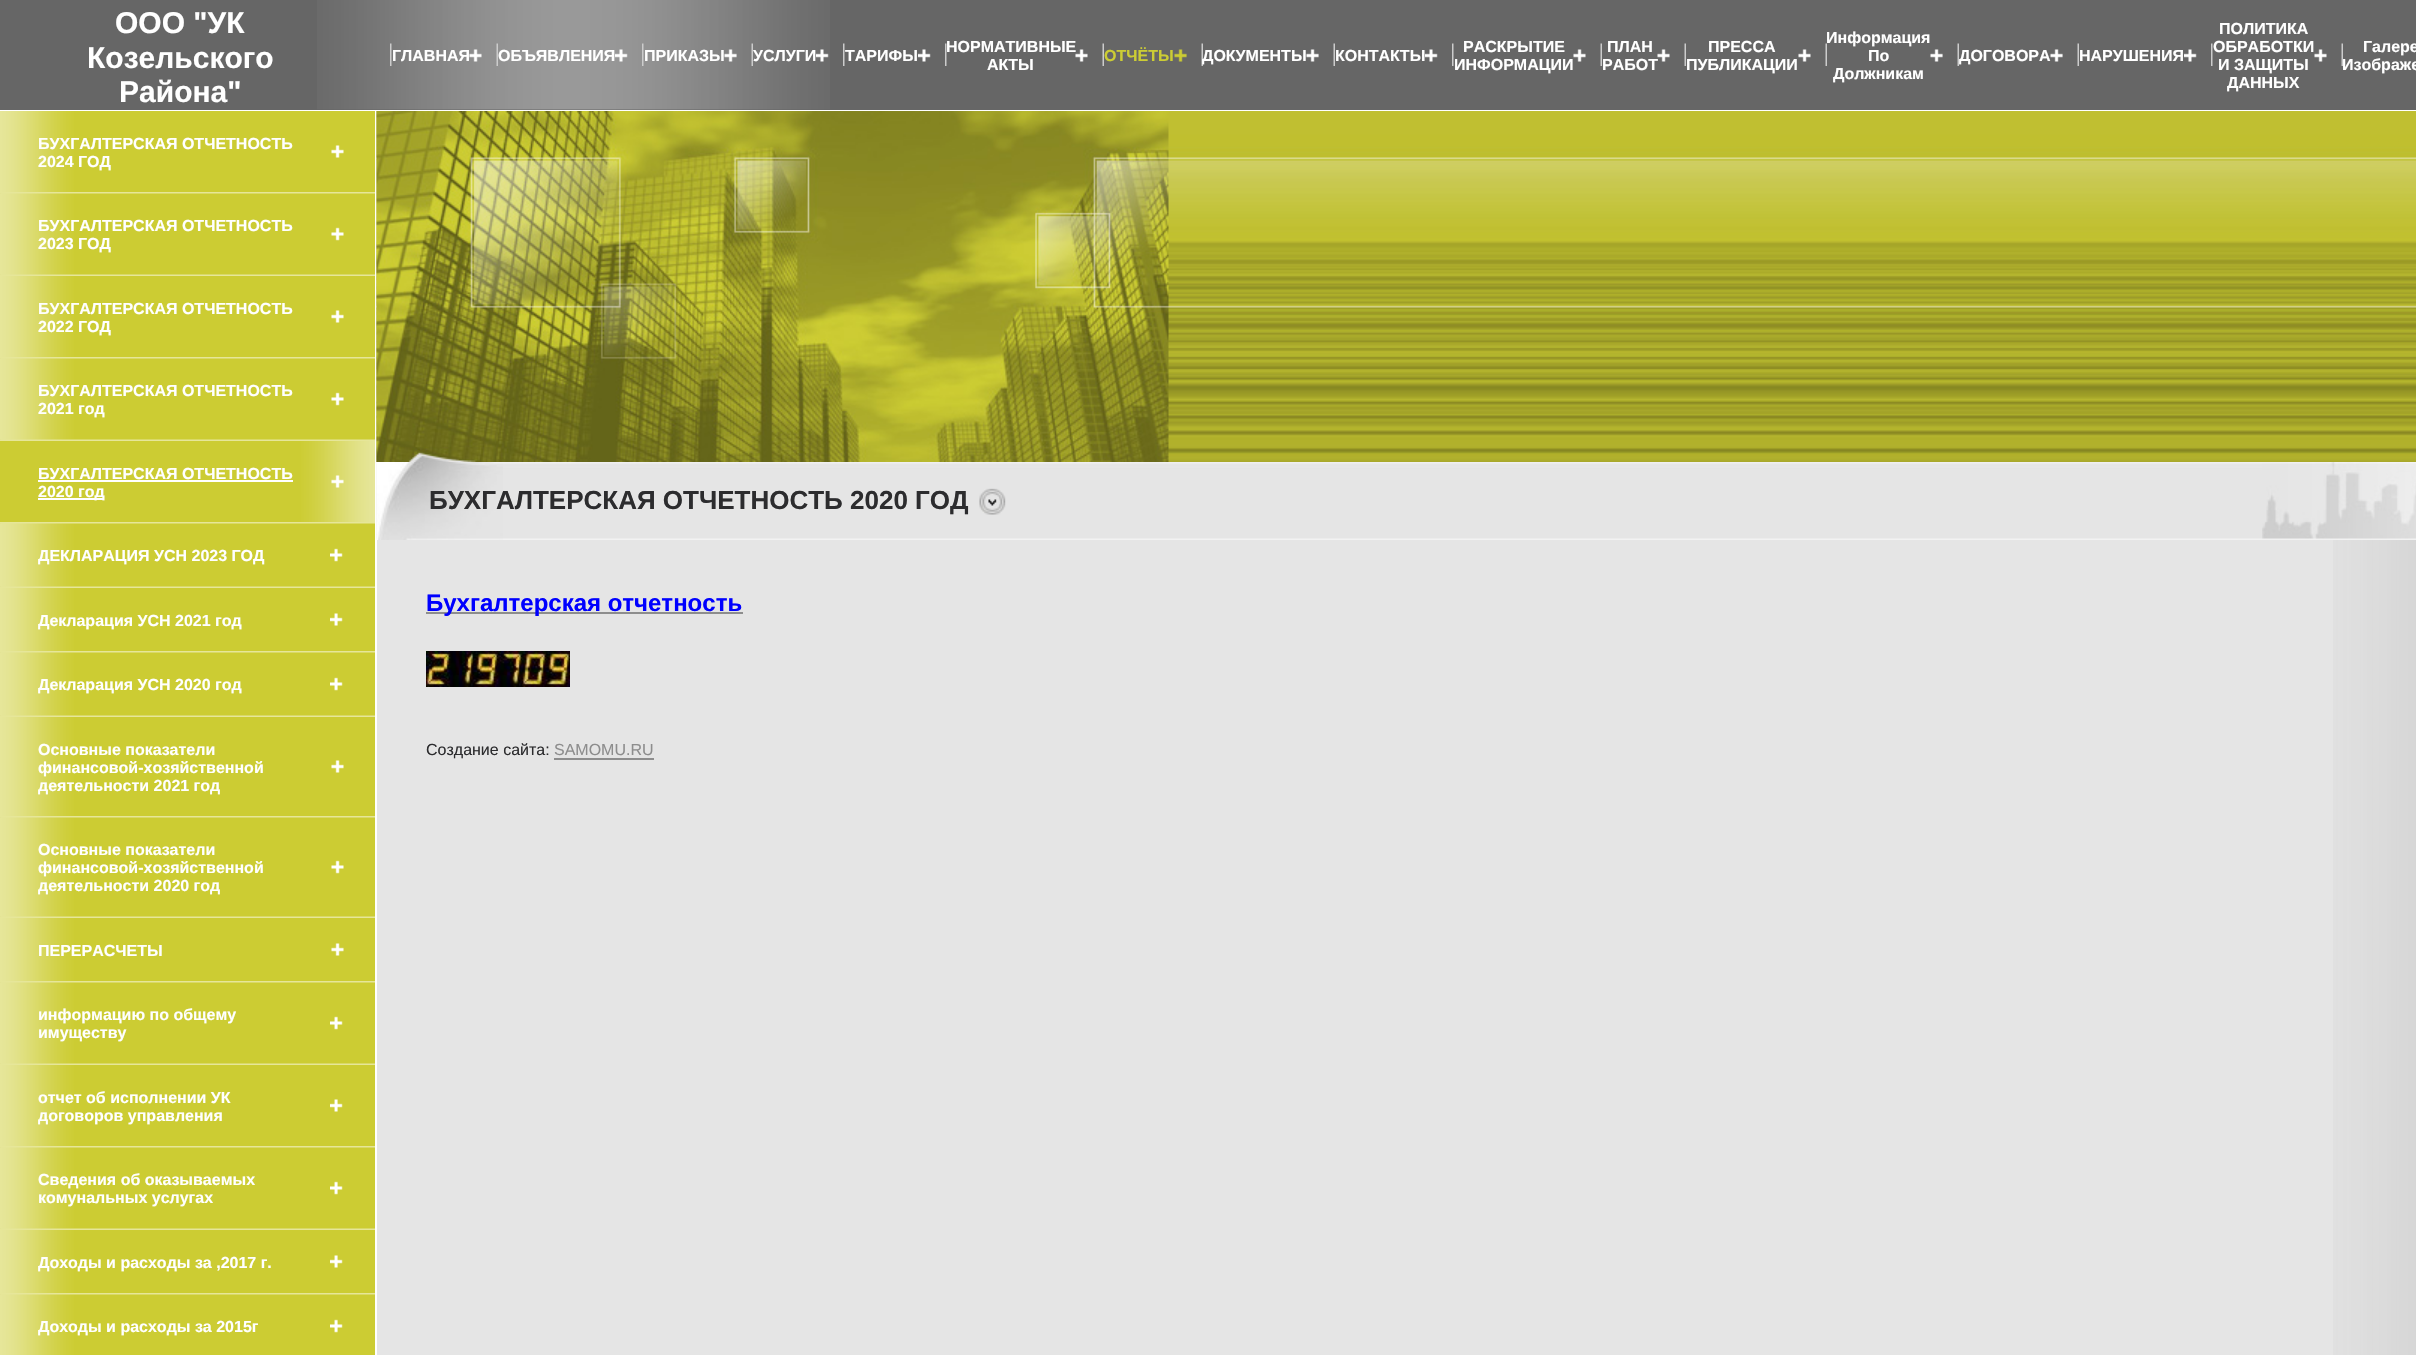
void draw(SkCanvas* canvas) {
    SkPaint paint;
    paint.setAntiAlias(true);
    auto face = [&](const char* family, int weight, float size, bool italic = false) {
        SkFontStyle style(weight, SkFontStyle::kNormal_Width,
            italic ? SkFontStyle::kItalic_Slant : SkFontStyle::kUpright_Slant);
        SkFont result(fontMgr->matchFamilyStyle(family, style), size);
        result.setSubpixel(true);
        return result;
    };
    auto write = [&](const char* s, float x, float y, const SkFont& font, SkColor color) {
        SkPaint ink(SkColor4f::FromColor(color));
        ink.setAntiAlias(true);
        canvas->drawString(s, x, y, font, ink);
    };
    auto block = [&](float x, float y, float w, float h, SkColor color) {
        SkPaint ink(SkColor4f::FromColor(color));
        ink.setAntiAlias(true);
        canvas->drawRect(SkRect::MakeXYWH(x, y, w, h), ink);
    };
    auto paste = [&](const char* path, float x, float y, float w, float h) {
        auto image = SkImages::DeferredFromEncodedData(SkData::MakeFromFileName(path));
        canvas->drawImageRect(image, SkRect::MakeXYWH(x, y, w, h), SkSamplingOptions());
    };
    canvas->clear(SK_ColorWHITE);
    paste("pic1.png", 0, 193, 375, 1102);
    block(0, 0, 2416, 110, SkColorSetRGB(102, 102, 102));
    paste("pic2.png", 317, 0, 513, 110);
    auto kFont1 = face("Liberation Sans", 700, 30);
    write("ООО \"УК", 115, 33, kFont1, SK_ColorWHITE);
    write("Козельского", 87, 68, kFont1, SK_ColorWHITE);
    write("Района\"", 119, 102, kFont1, SK_ColorWHITE);
    paste("pic3.png", 390, 43, 2, 23);
    paste("pic4.png", 496, 43, 2, 23);
    paste("pic5.png", 642, 43, 2, 23);
    paste("pic6.png", 751, 43, 2, 23);
    paste("pic7.png", 843, 43, 2, 23);
    paste("pic7.png", 945, 43, 2, 23);
    auto kFont2 = face("Liberation Sans", 700, 16);
    write("НОРМАТИВНЫЕ", 946, 52, kFont2, SK_ColorWHITE);
    write("АКТЫ", 987, 70, kFont2, SK_ColorWHITE);
    write("РАСКРЫТИЕ", 1463, 52, kFont2, SK_ColorWHITE);
    write("ИНФОРМАЦИИ", 1454, 70, kFont2, SK_ColorWHITE);
    write("ПЛАН", 1607, 52, kFont2, SK_ColorWHITE);
    write("РАБОТ", 1602, 70, kFont2, SK_ColorWHITE);
    write("ПРЕССА", 1708, 52, kFont2, SK_ColorWHITE);
    write("ПУБЛИКАЦИИ", 1686, 70, kFont2, SK_ColorWHITE);
    write("Информация", 1826, 43, kFont2, SK_ColorWHITE);
    write("По", 1868, 61, kFont2, SK_ColorWHITE);
    write("Должникам", 1833, 79, kFont2, SK_ColorWHITE);
    write("ПОЛИТИКА", 2219, 34, kFont2, SK_ColorWHITE);
    write("ОБРАБОТКИ", 2213, 52, kFont2, SK_ColorWHITE);
    write("И ЗАЩИТЫ", 2218, 70, kFont2, SK_ColorWHITE);
    write("ДАННЫХ", 2227, 88, kFont2, SK_ColorWHITE);
    write("Галере", 2363, 52, kFont2, SK_ColorWHITE);
    write("Изображе", 2342, 70, kFont2, SK_ColorWHITE);
    paste("pic8.png", 469, 49, 13, 13);
    write("ОБЪЯВЛЕНИЯ", 498, 61, kFont2, SK_ColorWHITE);
    paste("pic9.png", 615, 49, 13, 13);
    write("ПРИКАЗЫ", 644, 61, kFont2, SK_ColorWHITE);
    paste("pic10.png", 724, 49, 13, 13);
    write("УСЛУГИ", 753, 61, kFont2, SK_ColorWHITE);
    paste("pic11.png", 816, 49, 13, 13);
    write("ТАРИФЫ", 845, 61, kFont2, SK_ColorWHITE);
    paste("pic12.png", 918, 49, 13, 13);
    paste("pic13.png", 1075, 49, 13, 13);
    paste("pic14.png", 1102, 43, 2, 23);
    write("ОТЧЁТЫ", 1104, 61, kFont2, SkColorSetRGB(204, 205, 52));
    paste("pic15.png", 1174, 49, 13, 13);
    paste("pic14.png", 1201, 43, 2, 23);
    paste("pic14.png", 1333, 43, 2, 23);
    paste("pic7.png", 1452, 43, 2, 23);
    paste("pic14.png", 1600, 43, 2, 23);
    paste("pic14.png", 1684, 43, 2, 23);
    paste("pic14.png", 1825, 43, 2, 23);
    paste("pic14.png", 1957, 43, 2, 23);
    paste("pic14.png", 2077, 43, 2, 23);
    paste("pic7.png", 2211, 43, 2, 23);
    paste("pic14.png", 2341, 43, 2, 23);
    write("ГЛАВНАЯ", 392, 61, kFont2, SK_ColorWHITE);
    write("ДОКУМЕНТЫ", 1202, 61, kFont2, SK_ColorWHITE);
    paste("pic16.png", 1306, 49, 13, 13);
    write("КОНТАКТЫ", 1335, 61, kFont2, SK_ColorWHITE);
    paste("pic12.png", 1425, 49, 13, 13);
    paste("pic17.png", 1573, 49, 13, 13);
    paste("pic18.png", 1657, 49, 13, 13);
    paste("pic17.png", 1798, 49, 13, 13);
    paste("pic16.png", 1930, 49, 13, 13);
    write("ДОГОВОРА", 1959, 61, kFont2, SK_ColorWHITE);
    paste("pic19.png", 2050, 49, 13, 13);
    write("НАРУШЕНИЯ", 2079, 61, kFont2, SK_ColorWHITE);
    paste("pic12.png", 2184, 49, 13, 13);
    paste("pic17.png", 2314, 49, 13, 13);
    paste("pic20.png", 0, 111, 375, 81);
    write("БУХГАЛТЕРСКАЯ ОТЧЕТНОСТЬ", 38, 149, kFont2, SK_ColorWHITE);
    write("2024 ГОД", 38, 167, kFont2, SK_ColorWHITE);
    paste("pic21.png", 331, 145, 13, 13);
    paste("pic23.png", 0, 193, 375, 82);
    paste("pic22.png", 0, 192, 375, 2);
    write("БУХГАЛТЕРСКАЯ ОТЧЕТНОСТЬ", 38, 231, kFont2, SK_ColorWHITE);
    write("2023 ГОД", 38, 249, kFont2, SK_ColorWHITE);
    paste("pic24.png", 331, 227, 13, 14);
    paste("pic25.png", 0, 274, 375, 2);
    paste("pic26.png", 0, 276, 375, 81);
    write("БУХГАЛТЕРСКАЯ ОТЧЕТНОСТЬ", 38, 314, kFont2, SK_ColorWHITE);
    write("2022 ГОД", 38, 332, kFont2, SK_ColorWHITE);
    paste("pic21.png", 331, 310, 13, 13);
    paste("pic27.png", 0, 358, 375, 82);
    paste("pic22.png", 0, 357, 375, 2);
    write("БУХГАЛТЕРСКАЯ ОТЧЕТНОСТЬ", 38, 396, kFont2, SK_ColorWHITE);
    write("2021 год", 38, 414, kFont2, SK_ColorWHITE);
    paste("pic24.png", 331, 392, 13, 14);
    paste("pic25.png", 0, 439, 375, 2);
    paste("pic28.png", 0, 441, 375, 81);
    write("БУХГАЛТЕРСКАЯ ОТЧЕТНОСТЬ", 38, 479, kFont2, SK_ColorWHITE);
    block(38, 480, 255, 2, SK_ColorWHITE);
    block(38, 498, 66, 2, SK_ColorWHITE);
    write("2020 год", 38, 497, kFont2, SK_ColorWHITE);
    paste("pic29.png", 331, 475, 13, 13);
    paste("pic30.png", 0, 523, 375, 64);
    paste("pic22.png", 0, 522, 375, 2);
    write("ДЕКЛАРАЦИЯ УСН 2023 ГОД", 38, 561, kFont2, SK_ColorWHITE);
    paste("pic31.png", 330, 548, 13, 14);
    paste("pic25.png", 0, 586, 375, 2);
    paste("pic32.png", 0, 588, 375, 63);
    write("Декларация УСН 2021 год", 38, 626, kFont2, SK_ColorWHITE);
    paste("pic33.png", 330, 613, 13, 13);
    paste("pic34.png", 0, 652, 375, 64);
    paste("pic22.png", 0, 651, 375, 2);
    write("Декларация УСН 2020 год", 38, 690, kFont2, SK_ColorWHITE);
    paste("pic31.png", 330, 677, 13, 14);
    paste("pic25.png", 0, 715, 375, 2);
    paste("pic35.png", 0, 717, 375, 99);
    write("Основные показатели", 38, 755, kFont2, SK_ColorWHITE);
    write("финансовой-хозяйственной", 38, 773, kFont2, SK_ColorWHITE);
    write("деятельности 2021 год", 38, 791, kFont2, SK_ColorWHITE);
    paste("pic21.png", 331, 760, 13, 13);
    paste("pic36.png", 0, 817, 375, 100);
    paste("pic22.png", 0, 816, 375, 2);
    write("Основные показатели", 38, 855, kFont2, SK_ColorWHITE);
    write("финансовой-хозяйственной", 38, 873, kFont2, SK_ColorWHITE);
    write("деятельности 2020 год", 38, 891, kFont2, SK_ColorWHITE);
    paste("pic24.png", 331, 860, 13, 14);
    paste("pic25.png", 0, 916, 375, 2);
    paste("pic37.png", 0, 918, 375, 63);
    write("ПЕРЕРАСЧЕТЫ", 38, 956, kFont2, SK_ColorWHITE);
    paste("pic21.png", 331, 943, 13, 13);
    paste("pic38.png", 0, 982, 375, 82);
    paste("pic22.png", 0, 981, 375, 2);
    write("информацию по общему", 38, 1020, kFont2, SK_ColorWHITE);
    write("имуществу", 38, 1038, kFont2, SK_ColorWHITE);
    paste("pic31.png", 330, 1016, 13, 14);
    paste("pic25.png", 0, 1063, 375, 2);
    paste("pic39.png", 0, 1065, 375, 81);
    write("отчет об исполнении УК", 38, 1103, kFont2, SK_ColorWHITE);
    write("договоров управления", 38, 1121, kFont2, SK_ColorWHITE);
    paste("pic33.png", 330, 1099, 13, 13);
    paste("pic40.png", 0, 1147, 375, 82);
    paste("pic22.png", 0, 1146, 375, 2);
    write("Сведения об оказываемых", 38, 1185, kFont2, SK_ColorWHITE);
    write("комунальных услугах", 38, 1203, kFont2, SK_ColorWHITE);
    paste("pic31.png", 330, 1181, 13, 14);
    paste("pic25.png", 0, 1228, 375, 2);
    paste("pic41.png", 0, 1230, 375, 63);
    write("Доходы и расходы за ,2017 г.", 38, 1268, kFont2, SK_ColorWHITE);
    paste("pic33.png", 330, 1255, 13, 13);
    paste("pic42.png", 0, 1294, 375, 61);
    paste("pic22.png", 0, 1293, 375, 2);
    write("Доходы и расходы за 2015г", 38, 1332, kFont2, SK_ColorWHITE);
    paste("pic31.png", 330, 1319, 13, 14);
    block(377, 540, 1956, 815, SkColorSetRGB(229, 229, 229));
    paste("pic43.png", 376, 111, 2040, 351);
    paste("pic44.png", 376, 111, 793, 351);
    paste("pic45.png", 376, 462, 2040, 78);
    paste("pic46.png", 376, 462, 127, 78);
    auto kFont3 = face("Liberation Sans", 700, 26);
    write("БУХГАЛТЕРСКАЯ ОТЧЕТНОСТЬ 2020 ГОД", 429, 509, kFont3, SkColorSetRGB(44, 44, 46));
    paste("pic47.png", 979, 488, 27, 27);
    paste("pic48.png", 2262, 462, 154, 77);
    paste("pic49.png", 2333, 540, 83, 815);
    block(426, 612, 317, 2, SkColorSetRGB(141, 141, 141));
    auto kFont4 = face("Liberation Sans", 700, 24);
    write("Бухгалтерская отчетность", 426, 611, kFont4, SkColorSetRGB(0, 0, 255));
    paste("pic50.png", 426, 651, 144, 36);
    auto kFont5 = face("Liberation Sans", 400, 16);
    write("Cоздание сайта:", 426, 755, kFont5, SkColorSetRGB(44, 44, 46));
    write("SAMOMU.RU", 554, 755, kFont5, SkColorSetRGB(141, 141, 141));
    block(554, 758, 100, 2, SkColorSetRGB(141, 141, 141));
}
